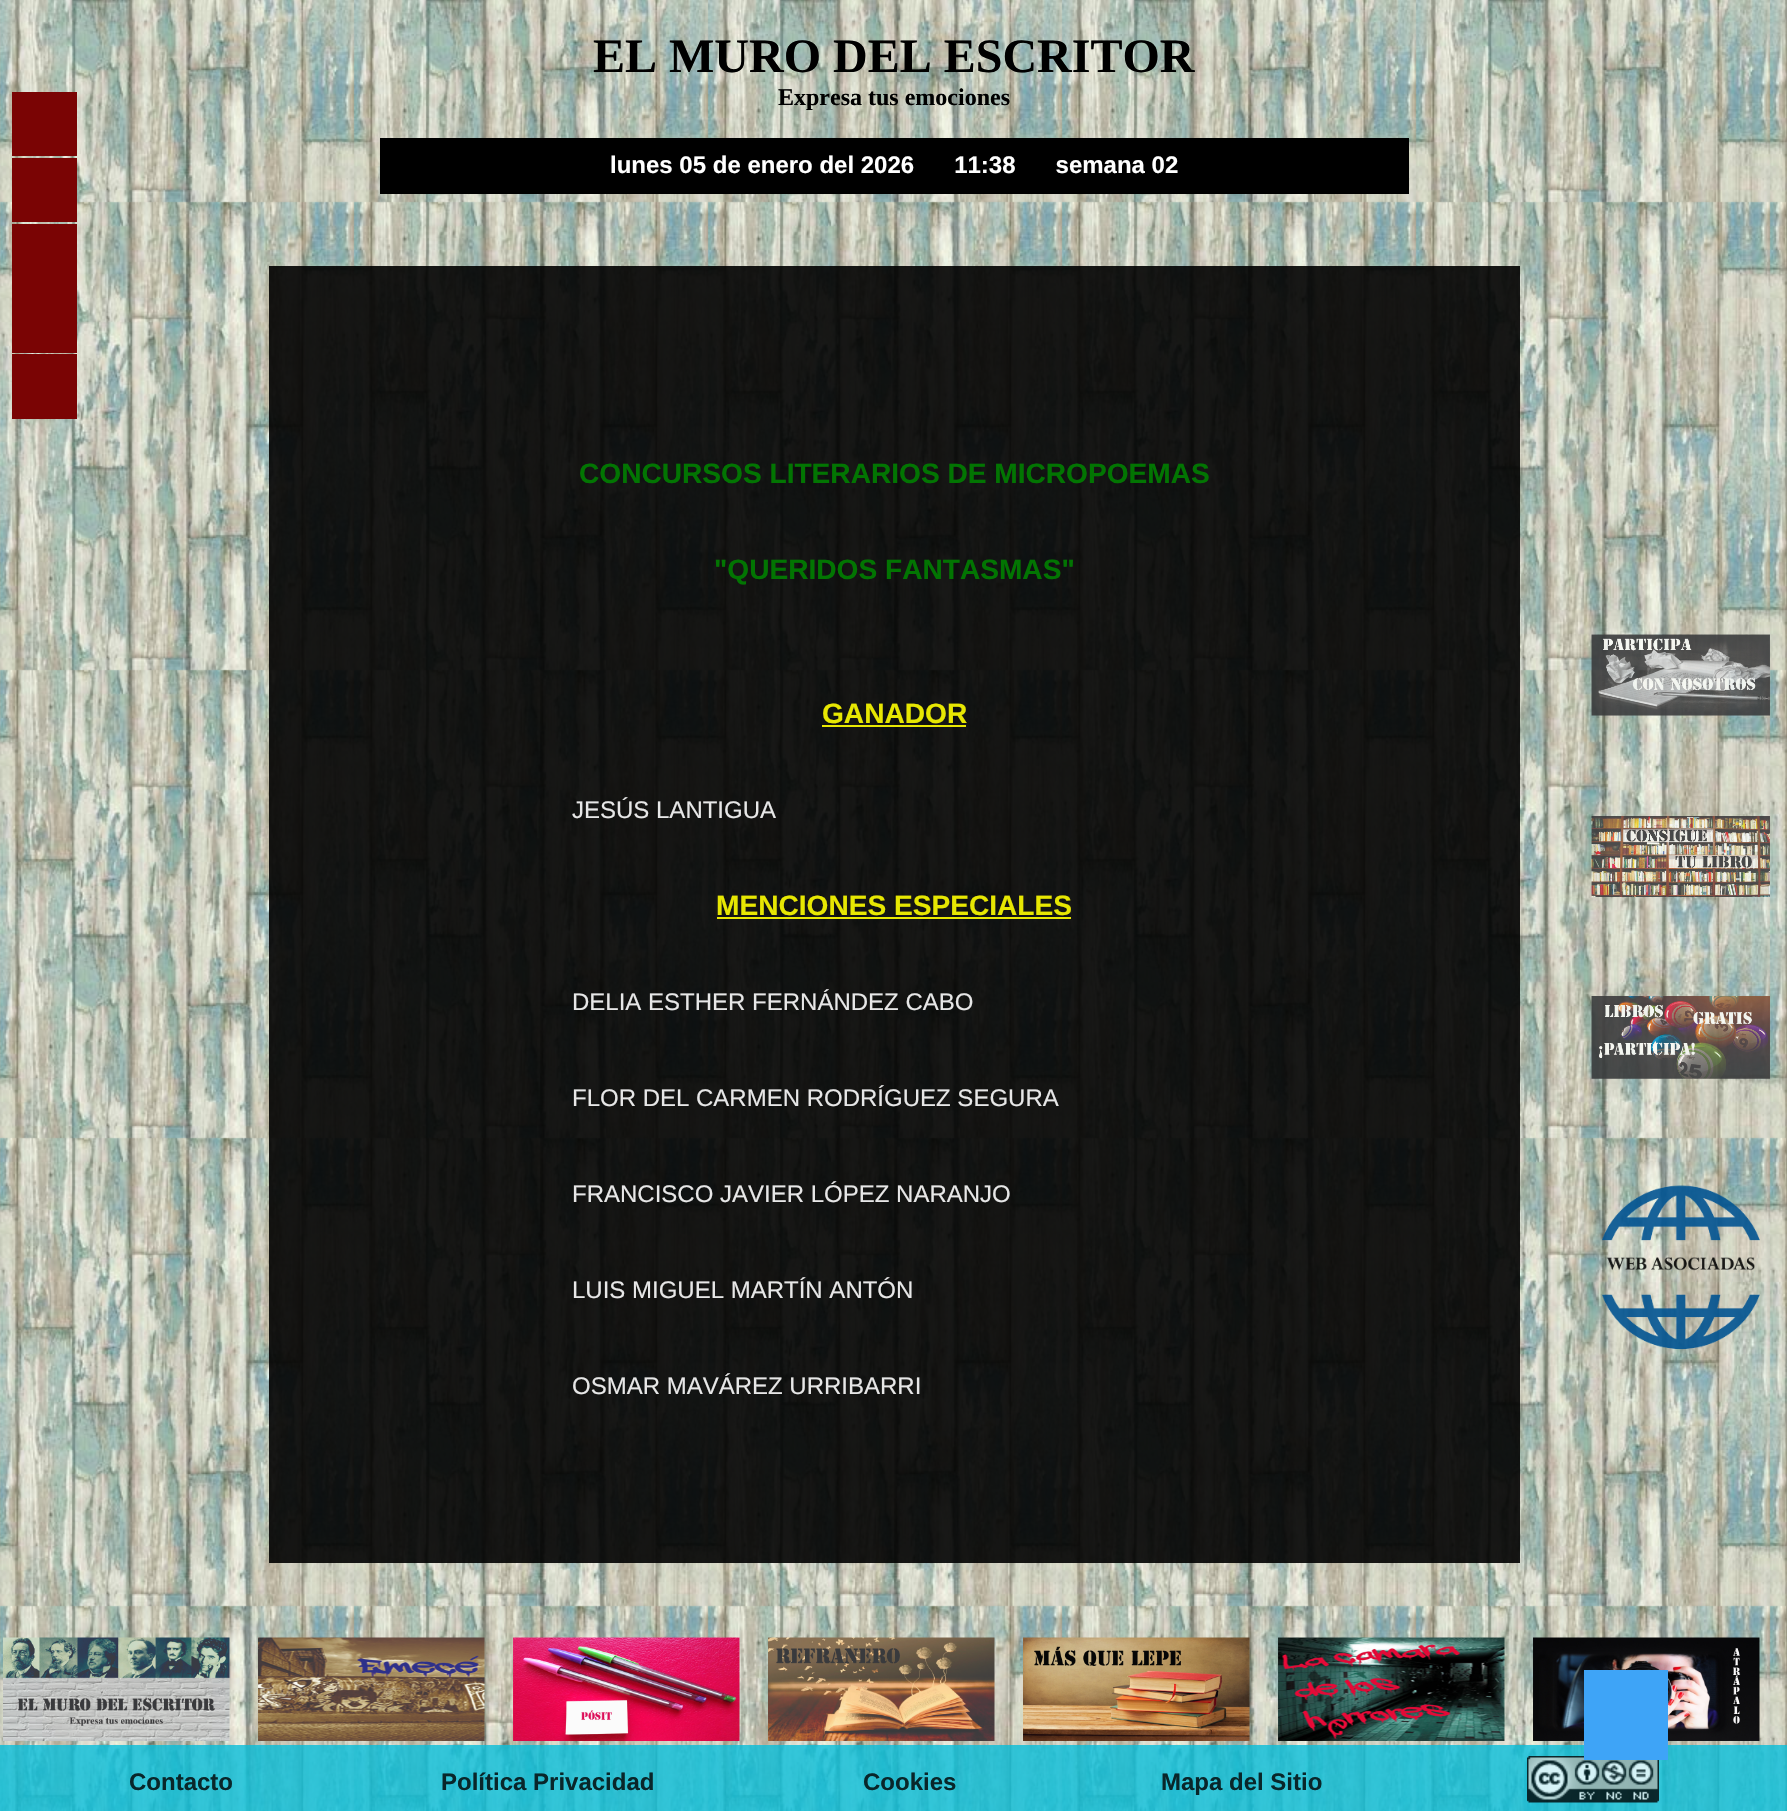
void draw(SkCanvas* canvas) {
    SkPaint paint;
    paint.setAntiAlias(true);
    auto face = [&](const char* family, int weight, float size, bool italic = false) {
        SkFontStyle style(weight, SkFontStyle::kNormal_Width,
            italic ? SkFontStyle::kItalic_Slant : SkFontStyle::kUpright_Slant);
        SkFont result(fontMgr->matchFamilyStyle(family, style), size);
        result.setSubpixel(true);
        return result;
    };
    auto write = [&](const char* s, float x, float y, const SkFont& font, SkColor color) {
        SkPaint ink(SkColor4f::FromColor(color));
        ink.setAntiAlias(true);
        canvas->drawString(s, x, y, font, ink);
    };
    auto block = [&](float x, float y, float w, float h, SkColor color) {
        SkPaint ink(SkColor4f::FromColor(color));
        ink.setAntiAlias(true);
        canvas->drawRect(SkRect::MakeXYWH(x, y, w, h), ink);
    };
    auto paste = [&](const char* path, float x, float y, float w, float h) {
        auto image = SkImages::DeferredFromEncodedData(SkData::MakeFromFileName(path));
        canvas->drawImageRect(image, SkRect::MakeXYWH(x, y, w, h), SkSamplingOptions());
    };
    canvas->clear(SK_ColorWHITE);
    paste("pic1.png", 0, 0, 1787, 1811);
    block(12, 92, 65, 64, SkColorSetRGB(122, 4, 4));
    block(12, 158, 65, 64, SkColorSetRGB(122, 4, 4));
    block(12, 224, 65, 129, SkColorSetRGB(122, 4, 4));
    block(12, 354, 65, 65, SkColorSetRGB(122, 4, 4));
    auto kFont1 = face("Liberation Serif", 700, 48);
    write("EL MURO DEL ESCRITOR", 593, 72, kFont1, SK_ColorBLACK);
    auto kFont2 = face("Liberation Serif", 700, 24);
    write("Expresa tus emociones", 778, 105, kFont2, SK_ColorBLACK);
    block(380, 138, 1029, 56, SK_ColorBLACK);
    auto kFont3 = face("Liberation Sans", 700, 24);
    write("lunes 05 de enero del 2026      11:38      semana 02", 610, 173, kFont3, SK_ColorWHITE);
    block(269, 266, 1251, 1297, SkColorSetARGB(230, 0, 0, 0));
    auto kFont4 = face("Liberation Sans", 700, 28.1f);
    write("CONCURSOS LITERARIOS DE MICROPOEMAS", 579, 483, kFont4, SkColorSetRGB(2, 117, 2));
    write("\"QUERIDOS FANTASMAS\"", 714, 579, kFont4, SkColorSetRGB(2, 117, 2));
    write("GANADOR", 822, 723, kFont4, SkColorSetRGB(231, 231, 2));
    block(822, 725, 144, 2, SkColorSetARGB(230, 255, 255, 0));
    paste("pic2.png", 1591, 634, 179, 82);
    paste("pic3.png", 1591, 816, 179, 81);
    paste("pic4.png", 1591, 996, 179, 83);
    paste("pic5.png", 1602, 1185, 158, 165);
    auto kFont5 = face("Liberation Sans", 400, 24);
    write("JESÚS LANTIGUA", 572, 818, kFont5, SkColorSetRGB(231, 231, 231));
    write("MENCIONES ESPECIALES", 716, 915, kFont4, SkColorSetRGB(231, 231, 2));
    block(717, 917, 354, 2, SkColorSetARGB(230, 255, 255, 0));
    write("DELIA ESTHER FERNÁNDEZ CABO", 572, 1010, kFont5, SkColorSetRGB(231, 231, 231));
    write("FLOR DEL CARMEN RODRÍGUEZ SEGURA", 572, 1106, kFont5, SkColorSetRGB(231, 231, 231));
    write("FRANCISCO JAVIER LÓPEZ NARANJO", 572, 1202, kFont5, SkColorSetRGB(231, 231, 231));
    write("LUIS MIGUEL MARTÍN ANTÓN", 572, 1298, kFont5, SkColorSetRGB(231, 231, 231));
    write("OSMAR MAVÁREZ URRIBARRI", 572, 1394, kFont5, SkColorSetRGB(231, 231, 231));
    paste("pic6.png", 3, 1637, 227, 104);
    paste("pic7.png", 258, 1637, 227, 104);
    paste("pic8.png", 513, 1637, 227, 104);
    paste("pic9.png", 768, 1637, 227, 104);
    paste("pic10.png", 1023, 1637, 227, 104);
    paste("pic11.png", 1278, 1637, 227, 104);
    paste("pic12.png", 1533, 1637, 227, 104);
    block(0, 1745, 1787, 66, SkColorSetARGB(204, 7, 190, 218));
    paste("pic13.png", 1527, 1756, 132, 47);
    block(1584, 1670, 84, 90, SkColorSetRGB(62, 164, 247));
    write("Contacto", 129, 1790, kFont3, SkColorSetRGB(9, 38, 42));
    write("Política Privacidad", 441, 1790, kFont3, SkColorSetRGB(9, 38, 42));
    write("Cookies", 863, 1790, kFont3, SkColorSetRGB(9, 38, 42));
    write("Mapa del Sitio", 1161, 1790, kFont3, SkColorSetRGB(9, 38, 42));
}
